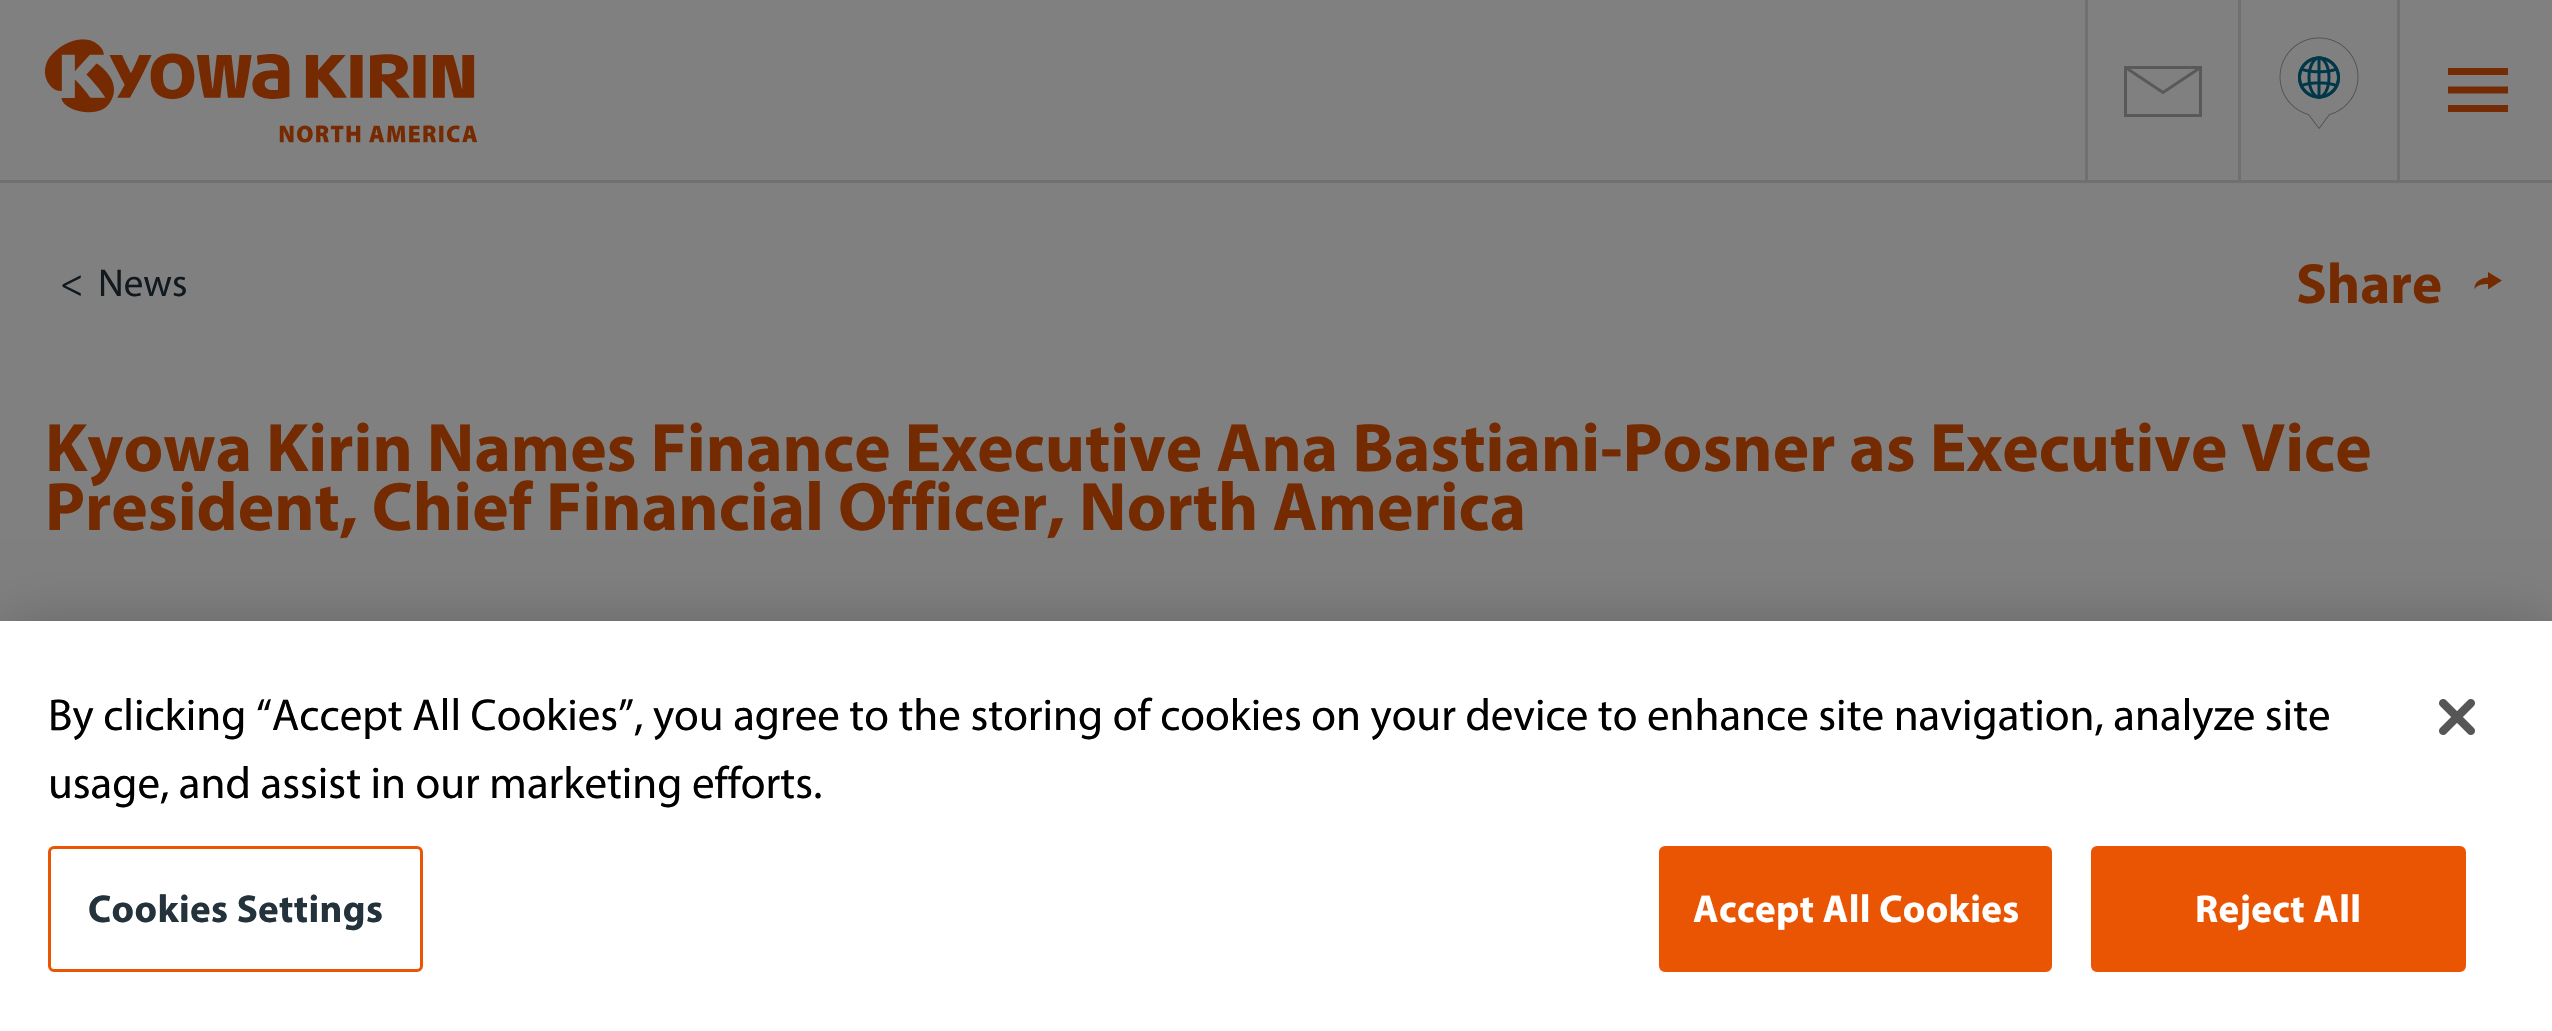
void draw(SkCanvas* canvas) {
    SkPaint paint;
    paint.setAntiAlias(true);
    auto face = [&](const char* family, int weight, float size, bool italic = false) {
        SkFontStyle style(weight, SkFontStyle::kNormal_Width,
            italic ? SkFontStyle::kItalic_Slant : SkFontStyle::kUpright_Slant);
        SkFont result(fontMgr->matchFamilyStyle(family, style), size);
        result.setSubpixel(true);
        return result;
    };
    auto write = [&](const char* s, float x, float y, const SkFont& font, SkColor color) {
        SkPaint ink(SkColor4f::FromColor(color));
        ink.setAntiAlias(true);
        canvas->drawString(s, x, y, font, ink);
    };
    auto writeSpaced = [&](const char* s, float x, float y, const SkFont& font, const SkPaint& ink, float letter, float word) {
        std::vector<SkGlyphID> glyphs(font.countText(s, strlen(s), SkTextEncoding::kUTF8));
        std::vector<float> xs(glyphs.size());
        font.textToGlyphs(s, strlen(s), SkTextEncoding::kUTF8, glyphs);
        font.getXPos(glyphs, xs, x);
        float extra = 0;
        for (size_t i = 0; i < glyphs.size(); i++) {
            xs[i] += extra;
            extra += letter + word * (glyphs[i] == font.unicharToGlyph(' '));
        }
        canvas->drawTextBlob(SkTextBlob::MakeFromPosHGlyphs(glyphs, xs, y, font), 0, 0, ink);
    };
    auto block = [&](float x, float y, float w, float h, SkColor color) {
        SkPaint ink(SkColor4f::FromColor(color));
        ink.setAntiAlias(true);
        canvas->drawRect(SkRect::MakeXYWH(x, y, w, h), ink);
    };
    auto paste = [&](const char* path, float x, float y, float w, float h) {
        auto image = SkImages::DeferredFromEncodedData(SkData::MakeFromFileName(path));
        canvas->drawImageRect(image, SkRect::MakeXYWH(x, y, w, h), SkSamplingOptions());
    };
    canvas->clear(SkColorSetRGB(128, 128, 128));
    block(0, 180, 2552, 3, SkColorSetRGB(112, 112, 112));
    paste("pic1.png", 45, 39, 432, 104);
    block(2238, 0, 3, 180, SkColorSetRGB(112, 112, 112));
    block(2085, 0, 3, 180, SkColorSetRGB(112, 112, 112));
    paint.setStyle(SkPaint::kStroke_Style);
    paint.setStrokeWidth(3);
    paint.setColor(SkColorSetRGB(89, 89, 89));
    canvas->drawRect(SkRect::MakeXYWH(2125.5f, 67.5f, 75, 48), paint);
    canvas->drawPath(SkPathBuilder().moveTo(2127, 68.5f).lineTo(2163, 92.5f).lineTo(2199, 68.5f).detach(), paint);
    paste("pic2.png", 2279, 37, 80, 92);
    block(2397, 0, 3, 180, SkColorSetRGB(112, 112, 112));
    block(2448, 105, 60, 7, SkColorSetRGB(117, 44, 4));
    block(2448, 68, 60, 7, SkColorSetRGB(117, 44, 4));
    canvas->save();
    canvas->clipRect(SkRect::MakeXYWH(2448, 66, 60, 48));
    paint.setStrokeWidth(6.9f);
    paint.setStrokeCap(SkPaint::kSquare_Cap);
    paint.setColor(SkColorSetRGB(117, 43, 2));
    canvas->drawPath(SkPathBuilder().moveTo(2449, 90).lineTo(2507, 90).detach(), paint);
    canvas->restore();
    auto kFont1 = face("Myriad", 400, 39);
    write("<", 60, 296, kFont1, SkColorSetRGB(18, 25, 30));
    write("News", 98, 296, kFont1, SkColorSetRGB(18, 25, 30));
    auto kFont2 = face("Myriad", 700, 57);
    write("Share", 2296, 303, kFont2, SkColorSetRGB(117, 43, 2));
    paint.setStyle(SkPaint::kFill_Style);
    canvas->drawPath(SkPathBuilder().moveTo(2488, 284).cubicTo(2483, 284, 2478, 284.5f, 2474.5f, 289).cubicTo(2474, 281.5f, 2482, 277.5f, 2488, 277.5f).lineTo(2488, 272).lineTo(2502, 280.5f).lineTo(2488, 289.5f).close().detach(), paint);
    auto kFont3 = face("Myriad", 700, 69);
    write("Kyowa Kirin Names Finance Executive Ana Bastiani-Posner as Executive Vice", 45, 471, kFont3, SkColorSetRGB(117, 43, 2));
    write("President, Chief Financial Officer, North America", 45, 530, kFont3, SkColorSetRGB(117, 43, 2));
    paint.setColor(SkColorSetARGB(51, 0, 0, 0));
    paint.setMaskFilter(SkMaskFilter::MakeBlur(kNormal_SkBlurStyle, 27));
    canvas->drawRect(SkRect::MakeXYWH(0, 621, 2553, 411), paint);
    paint.setMaskFilter(nullptr);
    block(0, 621, 2552, 410, SK_ColorWHITE);
    auto kFont4 = face("Myriad", 400, 45);
    write("By clicking “Accept All Cookies”, you agree to the storing of cookies on your device to enhance site navigation, analyze site", 48, 730, kFont4, SK_ColorBLACK);
    write("usage, and assist in our marketing efforts.", 48, 798, kFont4, SK_ColorBLACK);
    paint.setStyle(SkPaint::kStroke_Style);
    paint.setStrokeWidth(3);
    paint.setStrokeCap(SkPaint::kButt_Cap);
    paint.setColor(SkColorSetRGB(234, 85, 4));
    canvas->drawRoundRect(SkRect::MakeXYWH(49.5f, 847.5f, 372, 123), 4.5f, 4.5f, paint);
    auto kFont5 = face("Myriad", 700, 39);
    paint.setStyle(SkPaint::kFill_Style);
    paint.setColor(SkColorSetRGB(35, 50, 59));
    writeSpaced("Cookies Settings", 88, 922, kFont5, paint, 0.4f, 0);
    paint.setColor(SkColorSetRGB(234, 85, 4));
    canvas->drawRoundRect(SkRect::MakeXYWH(1660.5f, 847.5f, 390, 123), 4.5f, 4.5f, paint);
    paint.setStyle(SkPaint::kStroke_Style);
    canvas->drawRoundRect(SkRect::MakeXYWH(1660.5f, 847.5f, 390, 123), 4.5f, 4.5f, paint);
    paint.setStyle(SkPaint::kFill_Style);
    paint.setColor(SK_ColorWHITE);
    writeSpaced("Accept All Cookies", 1693, 922, kFont5, paint, 0.4f, 0);
    paint.setColor(SkColorSetRGB(234, 85, 4));
    canvas->drawRoundRect(SkRect::MakeXYWH(2092.5f, 847.5f, 372, 123), 4.5f, 4.5f, paint);
    paint.setStyle(SkPaint::kStroke_Style);
    canvas->drawRoundRect(SkRect::MakeXYWH(2092.5f, 847.5f, 372, 123), 4.5f, 4.5f, paint);
    paint.setStyle(SkPaint::kFill_Style);
    paint.setColor(SK_ColorWHITE);
    writeSpaced("Reject All", 2195, 922, kFont5, paint, 0.4f, 0);
    paste("pic3.png", 2439, 699, 36, 36);
}
